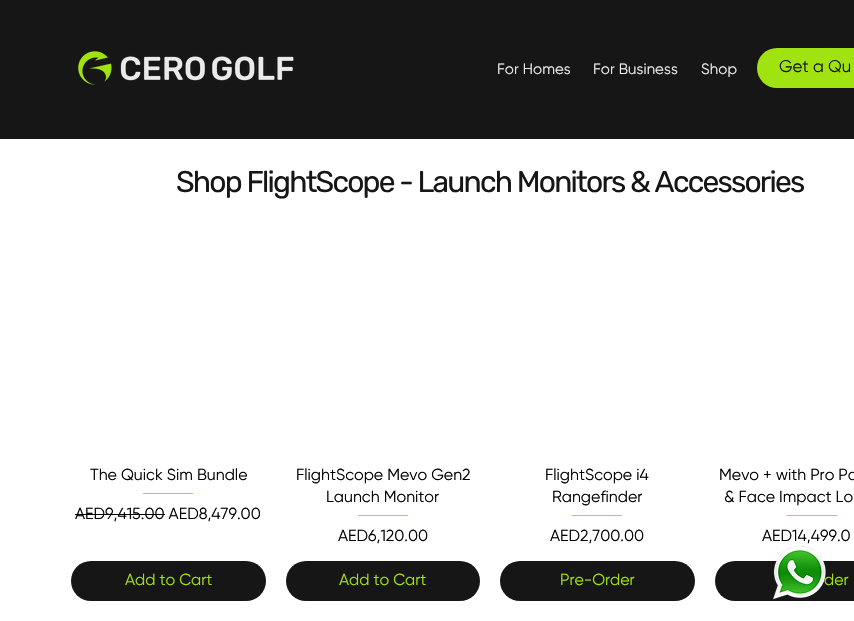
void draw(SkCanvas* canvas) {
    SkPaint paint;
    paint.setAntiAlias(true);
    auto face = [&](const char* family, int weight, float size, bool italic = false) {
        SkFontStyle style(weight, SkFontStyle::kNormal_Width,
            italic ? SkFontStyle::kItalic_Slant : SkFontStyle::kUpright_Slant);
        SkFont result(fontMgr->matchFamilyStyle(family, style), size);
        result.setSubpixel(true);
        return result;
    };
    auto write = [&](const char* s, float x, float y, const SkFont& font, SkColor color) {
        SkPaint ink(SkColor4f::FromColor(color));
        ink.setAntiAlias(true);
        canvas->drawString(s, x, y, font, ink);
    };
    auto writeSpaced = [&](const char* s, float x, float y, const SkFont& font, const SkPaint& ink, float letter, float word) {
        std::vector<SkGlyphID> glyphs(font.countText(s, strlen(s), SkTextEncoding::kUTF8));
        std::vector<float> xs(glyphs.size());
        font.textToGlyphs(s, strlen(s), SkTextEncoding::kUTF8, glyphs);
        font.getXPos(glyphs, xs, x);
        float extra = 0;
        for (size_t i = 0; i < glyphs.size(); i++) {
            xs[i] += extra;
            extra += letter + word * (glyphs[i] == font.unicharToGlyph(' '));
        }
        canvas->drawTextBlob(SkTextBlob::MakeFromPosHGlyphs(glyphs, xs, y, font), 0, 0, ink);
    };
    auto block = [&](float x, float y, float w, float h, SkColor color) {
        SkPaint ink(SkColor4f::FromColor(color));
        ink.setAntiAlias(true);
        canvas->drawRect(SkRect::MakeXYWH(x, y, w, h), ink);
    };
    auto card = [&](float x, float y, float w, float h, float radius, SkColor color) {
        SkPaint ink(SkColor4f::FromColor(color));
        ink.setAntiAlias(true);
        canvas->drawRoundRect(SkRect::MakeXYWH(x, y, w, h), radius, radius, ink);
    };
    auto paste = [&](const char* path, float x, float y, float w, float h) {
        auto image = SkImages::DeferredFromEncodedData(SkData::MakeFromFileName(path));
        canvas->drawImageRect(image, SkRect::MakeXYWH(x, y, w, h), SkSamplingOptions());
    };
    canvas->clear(SK_ColorWHITE);
    block(0, 0, 854, 139, SkColorSetRGB(22, 22, 22));
    paste("pic1.png", 78, 51, 216, 34);
    auto kFont1 = face("Gilroy", 400, 15);
    paint.setColor(SkColorSetRGB(237, 237, 237));
    writeSpaced("For Homes", 497, 74, kFont1, paint, 0.1f, 0);
    writeSpaced("For Business", 593, 74, kFont1, paint, 0.1f, 0);
    writeSpaced("Shop", 701, 74, kFont1, paint, 0.1f, 0);
    card(757, 48, 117, 40, 20, SkColorSetRGB(161, 227, 16));
    auto kFont2 = face("Gilroy", 400, 17);
    write("Get a Qu", 779, 72, kFont2, SkColorSetRGB(22, 22, 22));
    auto kFont3 = face("Rubik", 400, 30);
    paint.setColor(SkColorSetRGB(22, 22, 22));
    writeSpaced("Shop FlightScope - Launch Monitors & Accessories", 176, 192, kFont3, paint, -1.8f, 0);
    auto kFont4 = face("Gilroy", 400, 16);
    write("The Quick Sim Bundle", 90, 480, kFont4, SK_ColorBLACK);
    block(143, 493, 50, 1, SkColorSetRGB(161, 227, 16));
    write("AED9,415.00 AED8,479.00", 75, 519, kFont4, SK_ColorBLACK);
    block(75, 514, 90, 1, SK_ColorBLACK);
    card(71, 561, 195, 40, 20, SkColorSetRGB(22, 22, 22));
    write("Add to Cart", 125, 585, kFont4, SkColorSetRGB(161, 227, 16));
    write("FlightScope Mevo Gen2", 296, 480, kFont4, SK_ColorBLACK);
    write("Launch Monitor", 326, 502, kFont4, SK_ColorBLACK);
    block(358, 515, 50, 1, SkColorSetRGB(161, 227, 16));
    write("AED6,120.00", 338, 541, kFont4, SK_ColorBLACK);
    card(286, 561, 194, 40, 20, SkColorSetRGB(22, 22, 22));
    write("Add to Cart", 339, 585, kFont4, SkColorSetRGB(161, 227, 16));
    write("FlightScope i4", 545, 480, kFont4, SK_ColorBLACK);
    write("Rangefinder", 552, 502, kFont4, SK_ColorBLACK);
    block(572, 515, 50, 1, SkColorSetRGB(161, 227, 16));
    write("AED2,700.00", 550, 541, kFont4, SK_ColorBLACK);
    card(500, 561, 195, 40, 20, SkColorSetRGB(22, 22, 22));
    write("Pre-Order", 560, 585, kFont4, SkColorSetRGB(161, 227, 16));
    write("Mevo + with Pro Pa", 719, 480, kFont4, SK_ColorBLACK);
    write("& Face Impact Lo", 724, 502, kFont4, SK_ColorBLACK);
    block(787, 515, 50, 1, SkColorSetRGB(161, 227, 16));
    write("AED14,499.0", 762, 541, kFont4, SK_ColorBLACK);
    card(715, 561, 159, 40, 20, SkColorSetRGB(22, 22, 22));
    write("der", 824, 585, kFont4, SkColorSetRGB(161, 227, 16));
    paste("pic2.png", 773, 546, 53, 54);
}
